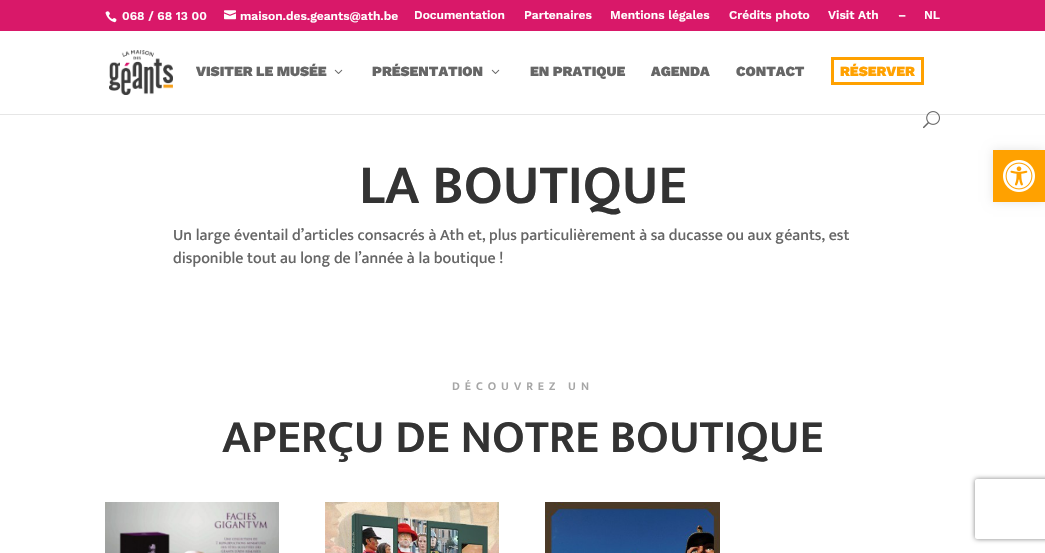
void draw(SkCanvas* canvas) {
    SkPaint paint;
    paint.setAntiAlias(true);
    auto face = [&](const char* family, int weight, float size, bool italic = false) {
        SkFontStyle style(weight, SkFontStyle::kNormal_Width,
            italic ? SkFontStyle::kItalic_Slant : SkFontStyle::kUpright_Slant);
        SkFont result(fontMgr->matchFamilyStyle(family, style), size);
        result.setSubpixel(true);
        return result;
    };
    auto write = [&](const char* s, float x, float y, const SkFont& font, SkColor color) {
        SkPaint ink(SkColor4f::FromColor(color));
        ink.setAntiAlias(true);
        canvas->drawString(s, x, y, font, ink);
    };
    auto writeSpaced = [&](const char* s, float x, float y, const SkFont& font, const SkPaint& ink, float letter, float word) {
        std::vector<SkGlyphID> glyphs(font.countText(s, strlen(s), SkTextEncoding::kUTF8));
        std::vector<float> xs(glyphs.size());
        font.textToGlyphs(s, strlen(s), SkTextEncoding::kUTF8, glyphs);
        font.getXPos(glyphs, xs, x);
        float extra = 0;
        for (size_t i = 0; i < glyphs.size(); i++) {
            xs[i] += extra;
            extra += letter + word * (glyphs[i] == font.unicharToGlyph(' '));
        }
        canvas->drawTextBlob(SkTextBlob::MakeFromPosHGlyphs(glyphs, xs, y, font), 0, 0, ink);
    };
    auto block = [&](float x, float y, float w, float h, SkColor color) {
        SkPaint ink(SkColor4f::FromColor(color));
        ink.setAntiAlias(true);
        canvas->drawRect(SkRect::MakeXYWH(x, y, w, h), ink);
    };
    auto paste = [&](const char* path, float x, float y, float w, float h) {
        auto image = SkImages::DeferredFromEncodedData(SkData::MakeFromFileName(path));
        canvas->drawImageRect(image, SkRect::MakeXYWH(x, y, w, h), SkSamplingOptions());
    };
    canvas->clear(SK_ColorWHITE);
    block(0, 0, 1045, 31, SkColorSetRGB(217, 24, 105));
    paste("pic1.png", 105, 11, 12, 12);
    auto kFont1 = face("Work Sans", 600, 12);
    write("068 / 68 13 00", 122, 20, kFont1, SK_ColorWHITE);
    paste("pic2.png", 224, 10, 12, 10);
    write("maison.des.geants@ath.be", 240, 20, kFont1, SK_ColorWHITE);
    write("Documentation", 414, 19, kFont1, SK_ColorWHITE);
    write("Partenaires", 524, 19, kFont1, SK_ColorWHITE);
    write("Mentions légales", 610, 19, kFont1, SK_ColorWHITE);
    write("Crédits photo", 729, 19, kFont1, SK_ColorWHITE);
    write("Visit Ath", 828, 19, kFont1, SK_ColorWHITE);
    write("–", 898, 19, kFont1, SK_ColorWHITE);
    write("NL", 924, 19, kFont1, SK_ColorWHITE);
    block(0, 114, 1045, 1, SkColorSetRGB(230, 230, 230));
    paste("pic3.png", 109, 50, 64, 45);
    auto kFont2 = face("Work Sans", 900, 14);
    write("VISITER LE MUSÉE", 196, 76, kFont2, SkColorSetRGB(102, 102, 102));
    paste("pic4.png", 334, 69, 9, 5);
    write("PRÉSENTATION", 372, 76, kFont2, SkColorSetRGB(102, 102, 102));
    paste("pic4.png", 491, 69, 9, 5);
    write("EN PRATIQUE", 530, 76, kFont2, SkColorSetRGB(102, 102, 102));
    write("AGENDA", 651, 76, kFont2, SkColorSetRGB(102, 102, 102));
    write("CONTACT", 736, 76, kFont2, SkColorSetRGB(102, 102, 102));
    paint.setStyle(SkPaint::kStroke_Style);
    paint.setStrokeWidth(3);
    paint.setColor(SkColorSetRGB(255, 161, 0));
    canvas->drawRect(SkRect::MakeXYWH(832.5f, 58.5f, 90, 25), paint);
    write("RÉSERVER", 840, 76, kFont2, SkColorSetRGB(255, 161, 0));
    paste("pic5.png", 923, 111, 17, 18);
    auto kFont3 = face("Mukta", 600, 56);
    write("LA BOUTIQUE", 359, 203, kFont3, SkColorSetRGB(51, 51, 51));
    auto kFont4 = face("Mukta", 500, 16);
    write("Un large éventail d’articles consacrés à Ath et, plus particulièrement à sa ducasse ou aux géants, est", 173, 240, kFont4, SkColorSetRGB(102, 102, 102));
    write("disponible tout au long de l’année à la boutique !", 173, 263, kFont4, SkColorSetRGB(102, 102, 102));
    auto kFont5 = face("Mukta", 600, 12);
    paint.setStyle(SkPaint::kFill_Style);
    paint.setColor(SkColorSetRGB(166, 166, 166));
    writeSpaced("DÉCOUVREZ UN", 452, 390, kFont5, paint, 5, 0);
    auto kFont6 = face("Mukta", 600, 47);
    write("APERÇU DE NOTRE BOUTIQUE", 222, 452, kFont6, SkColorSetRGB(51, 51, 51));
    paste("pic6.png", 105, 502, 174, 51);
    paste("pic7.png", 325, 502, 174, 51);
    paste("pic8.png", 545, 502, 175, 51);
    paint.setColor(SkColorSetARGB(26, 0, 0, 0));
    paint.setMaskFilter(SkMaskFilter::MakeBlur(kNormal_SkBlurStyle, 5));
    canvas->drawRect(SkRect::MakeXYWH(993, 150, 52, 52), paint);
    paint.setMaskFilter(nullptr);
    block(993, 150, 52, 52, SkColorSetRGB(255, 161, 0));
    paste("pic9.png", 1003, 160, 32, 32);
    canvas->save();
    canvas->clipPath(SkPathBuilder(SkPathFillType::kEvenOdd).moveTo(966, 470).lineTo(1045, 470).lineTo(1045, 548).lineTo(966, 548).close().moveTo(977, 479).lineTo(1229, 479).cubicTo(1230, 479, 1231, 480, 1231, 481).lineTo(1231, 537).cubicTo(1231, 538, 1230, 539, 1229, 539).lineTo(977, 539).cubicTo(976, 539, 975, 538, 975, 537).lineTo(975, 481).cubicTo(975, 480, 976, 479, 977, 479).close().detach(), true);
    paint.setColor(SkColorSetRGB(128, 128, 128));
    paint.setMaskFilter(SkMaskFilter::MakeBlur(kNormal_SkBlurStyle, 2.5f));
    canvas->drawRoundRect(SkRect::MakeXYWH(975, 479, 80, 60), 2, 2, paint);
    paint.setMaskFilter(nullptr);
    canvas->restore();
}
